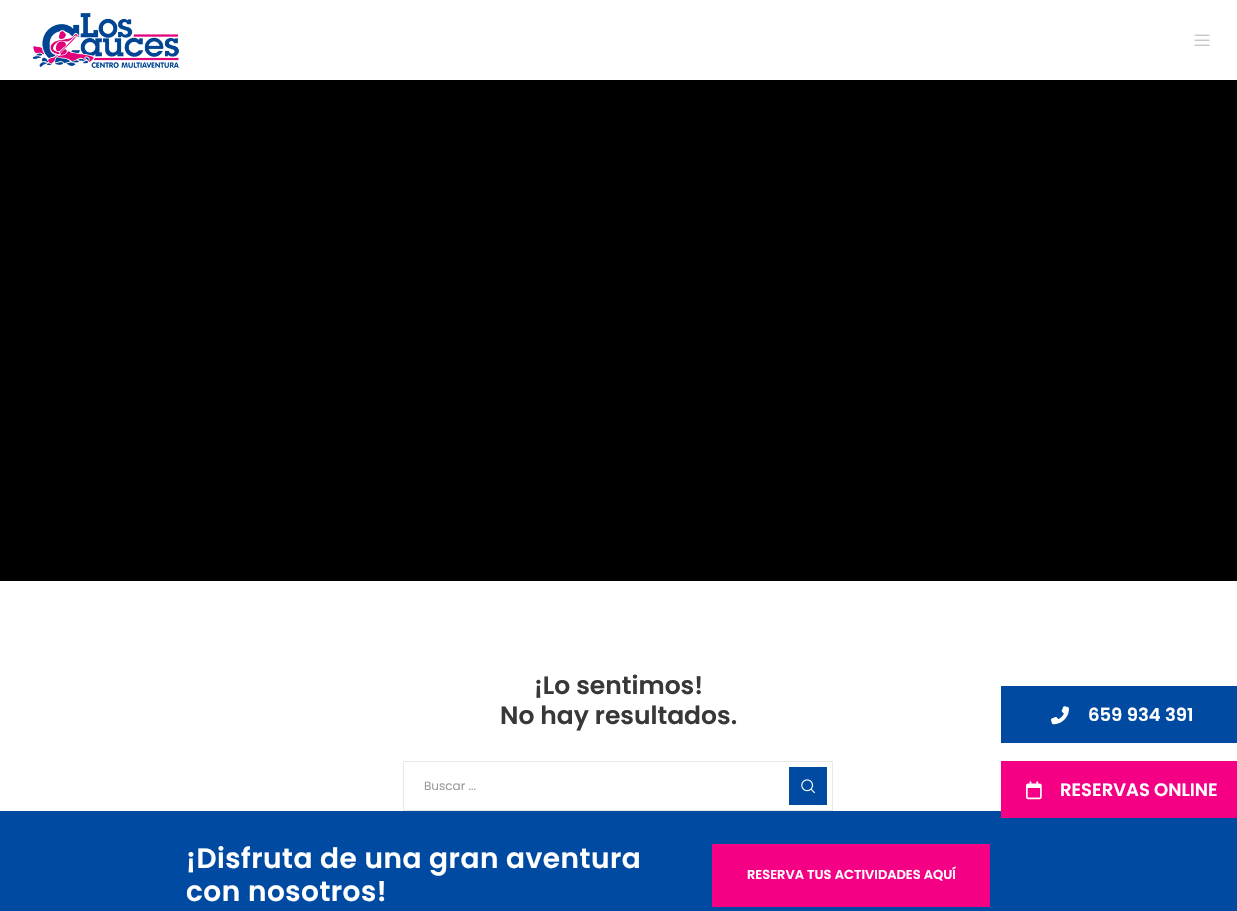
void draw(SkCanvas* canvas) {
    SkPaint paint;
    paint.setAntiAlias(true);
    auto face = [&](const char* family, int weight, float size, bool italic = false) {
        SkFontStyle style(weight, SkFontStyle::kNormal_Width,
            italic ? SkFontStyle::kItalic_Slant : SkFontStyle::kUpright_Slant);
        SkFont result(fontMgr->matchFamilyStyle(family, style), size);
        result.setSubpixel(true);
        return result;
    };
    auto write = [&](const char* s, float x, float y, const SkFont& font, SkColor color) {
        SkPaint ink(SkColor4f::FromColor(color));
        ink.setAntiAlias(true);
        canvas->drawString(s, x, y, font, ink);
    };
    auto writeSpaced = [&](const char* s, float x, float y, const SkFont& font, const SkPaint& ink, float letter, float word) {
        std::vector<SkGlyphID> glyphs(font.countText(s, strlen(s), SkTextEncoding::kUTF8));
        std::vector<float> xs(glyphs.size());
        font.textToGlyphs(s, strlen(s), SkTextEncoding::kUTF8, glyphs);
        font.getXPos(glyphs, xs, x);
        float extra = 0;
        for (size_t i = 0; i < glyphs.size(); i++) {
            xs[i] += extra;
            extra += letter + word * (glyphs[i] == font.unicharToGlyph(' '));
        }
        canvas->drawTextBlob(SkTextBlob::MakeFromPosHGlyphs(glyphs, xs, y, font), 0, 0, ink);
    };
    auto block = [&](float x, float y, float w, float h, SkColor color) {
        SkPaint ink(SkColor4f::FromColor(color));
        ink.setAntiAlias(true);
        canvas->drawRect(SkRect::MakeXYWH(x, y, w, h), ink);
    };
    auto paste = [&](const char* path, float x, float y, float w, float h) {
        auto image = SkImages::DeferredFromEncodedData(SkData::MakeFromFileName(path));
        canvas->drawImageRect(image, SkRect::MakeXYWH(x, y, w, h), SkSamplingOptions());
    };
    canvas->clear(SkColorSetRGB(0, 75, 161));
    block(0, 0, 1237, 80, SK_ColorWHITE);
    paste("pic1.png", 32, 13, 147, 55);
    paste("pic2.png", 1194, 34, 16, 12);
    block(0, 80, 1237, 501, SK_ColorBLACK);
    block(0, 581, 1237, 230, SK_ColorWHITE);
    auto kFont1 = face("Poppins", 600, 25);
    write("¡Lo sentimos!", 534, 694, kFont1, SkColorSetRGB(56, 56, 56));
    write("No hay resultados.", 500, 724, kFont1, SkColorSetRGB(56, 56, 56));
    paint.setStyle(SkPaint::kStroke_Style);
    paint.setStrokeWidth(1);
    paint.setColor(SkColorSetRGB(233, 233, 233));
    canvas->drawRect(SkRect::MakeXYWH(403.5f, 761.5f, 429, 49), paint);
    auto kFont2 = face("Poppins", 400, 12);
    write("Buscar ...", 424, 790, kFont2, SkColorSetRGB(156, 156, 156));
    block(789, 767, 38, 38, SkColorSetRGB(0, 75, 161));
    paste("pic3.png", 801, 779, 15, 15);
    block(1001, 686, 236, 57, SkColorSetRGB(0, 75, 161));
    paste("pic4.png", 1051, 706, 18, 19);
    auto kFont3 = face("Poppins", 600, 18);
    write("659 934 391", 1088, 721, kFont3, SK_ColorWHITE);
    block(1001, 761, 236, 57, SkColorSetRGB(245, 0, 132));
    paste("pic5.png", 1026, 781, 16, 19);
    write("RESERVAS ONLINE", 1060, 796, kFont3, SK_ColorWHITE);
    auto kFont4 = face("Poppins", 600, 28);
    paint.setStyle(SkPaint::kFill_Style);
    paint.setColor(SK_ColorWHITE);
    writeSpaced("¡Disfruta de una gran aventura", 186, 868, kFont4, paint, 0.5f, 0);
    writeSpaced("con nosotros!", 186, 901, kFont4, paint, 0.5f, 0);
    block(712, 844, 278, 63, SkColorSetRGB(245, 0, 132));
    auto kFont5 = face("Poppins", 600, 13);
    write("RESERVA TUS ACTIVIDADES AQUÍ", 747, 879, kFont5, SK_ColorWHITE);
}
